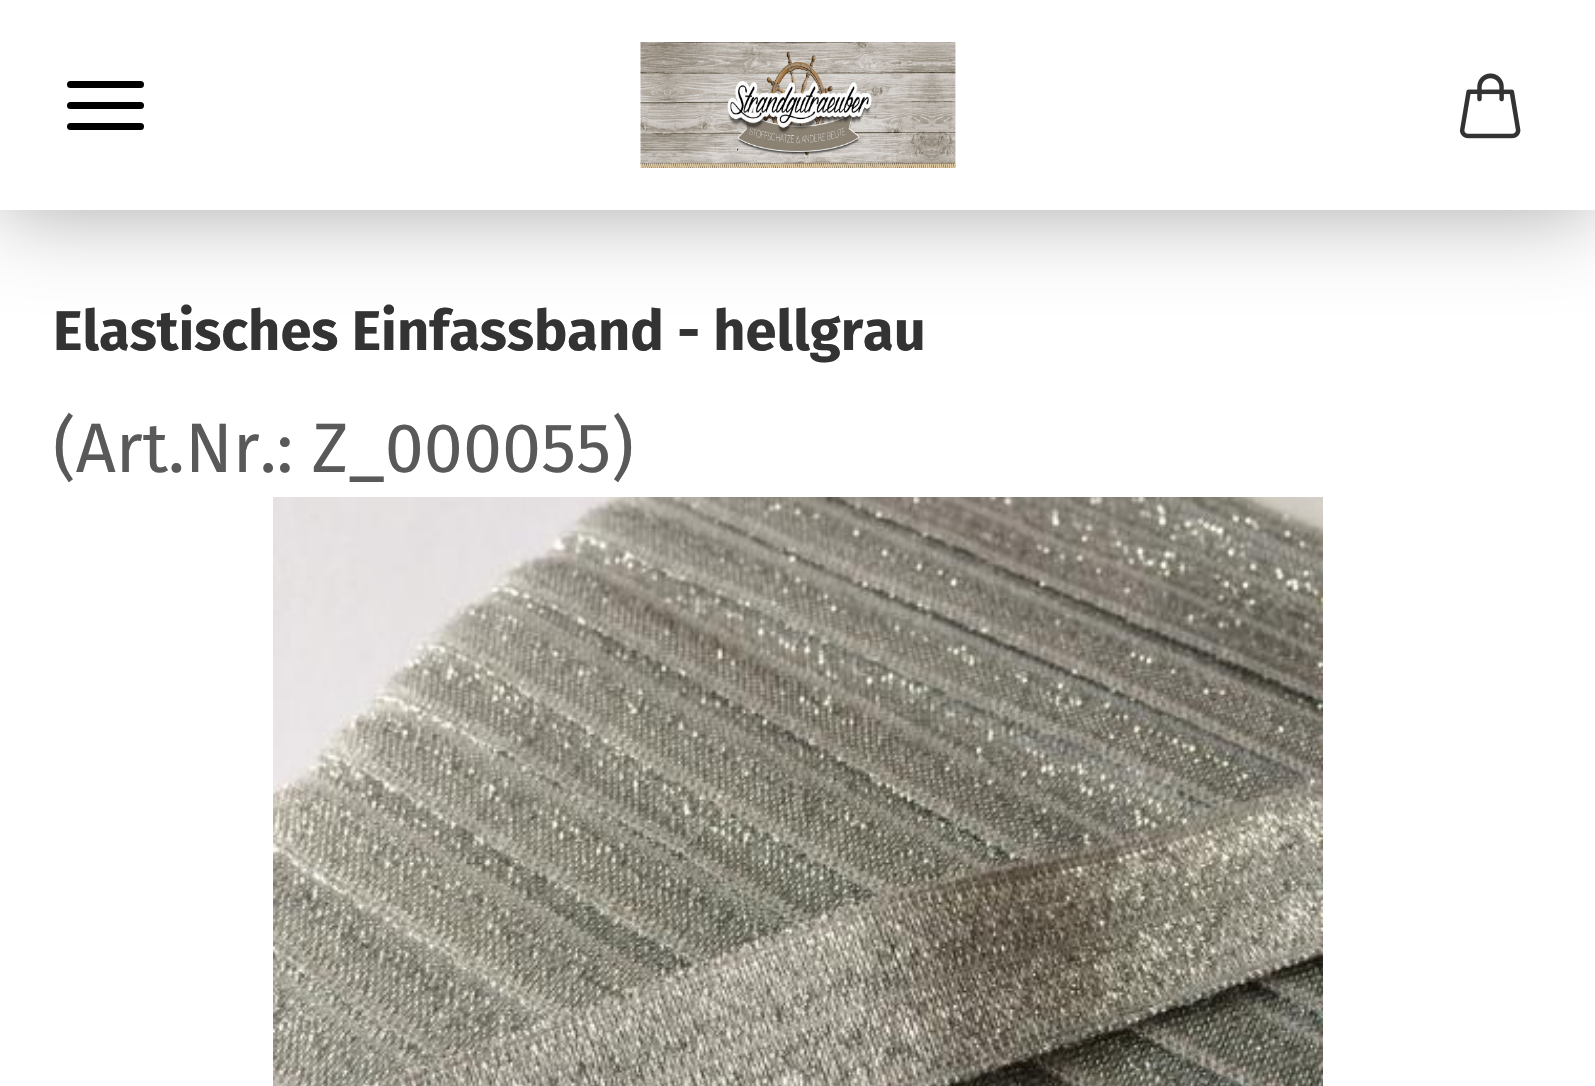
void draw(SkCanvas* canvas) {
    SkPaint paint;
    paint.setAntiAlias(true);
    auto face = [&](const char* family, int weight, float size, bool italic = false) {
        SkFontStyle style(weight, SkFontStyle::kNormal_Width,
            italic ? SkFontStyle::kItalic_Slant : SkFontStyle::kUpright_Slant);
        SkFont result(fontMgr->matchFamilyStyle(family, style), size);
        result.setSubpixel(true);
        return result;
    };
    auto write = [&](const char* s, float x, float y, const SkFont& font, SkColor color) {
        SkPaint ink(SkColor4f::FromColor(color));
        ink.setAntiAlias(true);
        canvas->drawString(s, x, y, font, ink);
    };
    auto block = [&](float x, float y, float w, float h, SkColor color) {
        SkPaint ink(SkColor4f::FromColor(color));
        ink.setAntiAlias(true);
        canvas->drawRect(SkRect::MakeXYWH(x, y, w, h), ink);
    };
    auto card = [&](float x, float y, float w, float h, float radius, SkColor color) {
        SkPaint ink(SkColor4f::FromColor(color));
        ink.setAntiAlias(true);
        canvas->drawRoundRect(SkRect::MakeXYWH(x, y, w, h), radius, radius, ink);
    };
    auto paste = [&](const char* path, float x, float y, float w, float h) {
        auto image = SkImages::DeferredFromEncodedData(SkData::MakeFromFileName(path));
        canvas->drawImageRect(image, SkRect::MakeXYWH(x, y, w, h), SkSamplingOptions());
    };
    canvas->clear(SK_ColorWHITE);
    paint.setColor(SkColorSetARGB(89, 0, 0, 0));
    paint.setMaskFilter(SkMaskFilter::MakeBlur(kNormal_SkBlurStyle, 44));
    canvas->drawRect(SkRect::MakeXYWH(0, 0, 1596, 210), paint);
    paint.setMaskFilter(nullptr);
    block(0, 0, 1595, 210, SK_ColorWHITE);
    paste("pic1.png", 640, 42, 316, 126);
    paste("pic2.png", 1459, 73, 62, 66);
    card(67, 102, 77, 7, 3.5f, SK_ColorBLACK);
    card(67, 81, 77, 7, 3.5f, SK_ColorBLACK);
    card(67, 123, 77, 7, 3.5f, SK_ColorBLACK);
    auto kFont1 = face("Fira Sans", 700, 56);
    write("Elastisches Einfassband - hellgrau", 53, 350, kFont1, SkColorSetRGB(51, 51, 51));
    auto kFont2 = face("Fira Sans", 400, 70);
    write("(Art.Nr.: Z_000055)", 53, 472, kFont2, SkColorSetRGB(89, 89, 89));
    paste("pic3.png", 273, 497, 1050, 589);
}
